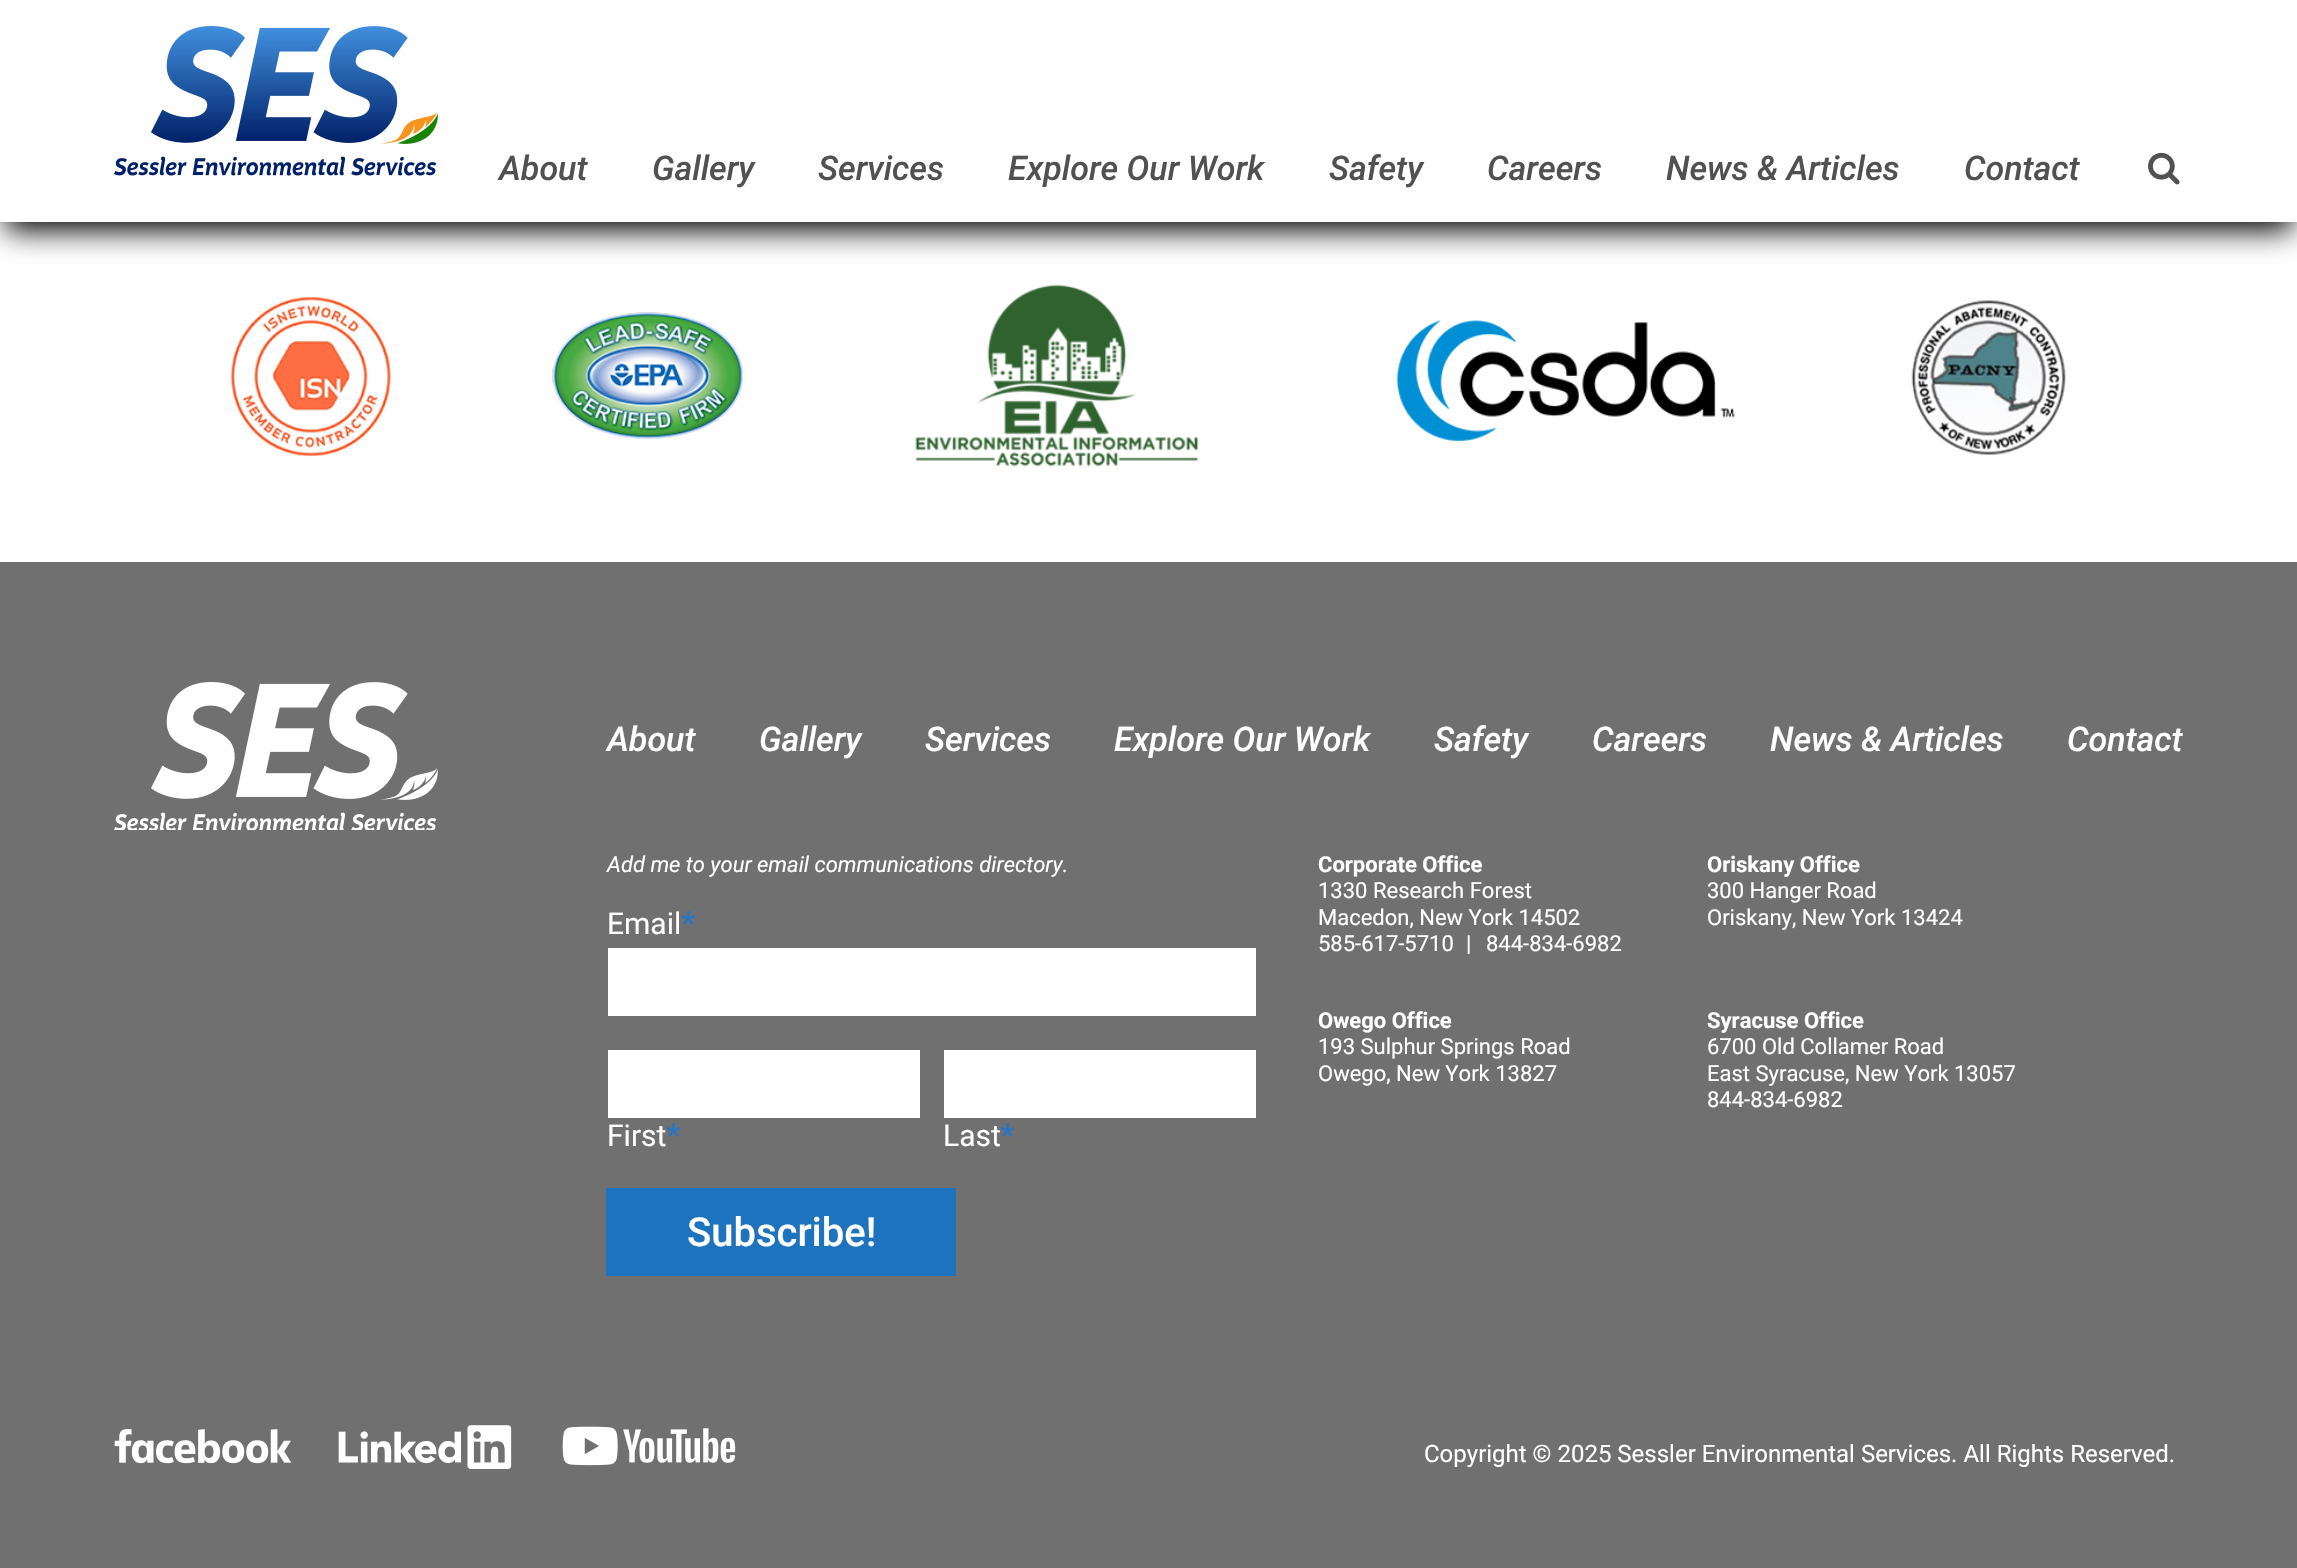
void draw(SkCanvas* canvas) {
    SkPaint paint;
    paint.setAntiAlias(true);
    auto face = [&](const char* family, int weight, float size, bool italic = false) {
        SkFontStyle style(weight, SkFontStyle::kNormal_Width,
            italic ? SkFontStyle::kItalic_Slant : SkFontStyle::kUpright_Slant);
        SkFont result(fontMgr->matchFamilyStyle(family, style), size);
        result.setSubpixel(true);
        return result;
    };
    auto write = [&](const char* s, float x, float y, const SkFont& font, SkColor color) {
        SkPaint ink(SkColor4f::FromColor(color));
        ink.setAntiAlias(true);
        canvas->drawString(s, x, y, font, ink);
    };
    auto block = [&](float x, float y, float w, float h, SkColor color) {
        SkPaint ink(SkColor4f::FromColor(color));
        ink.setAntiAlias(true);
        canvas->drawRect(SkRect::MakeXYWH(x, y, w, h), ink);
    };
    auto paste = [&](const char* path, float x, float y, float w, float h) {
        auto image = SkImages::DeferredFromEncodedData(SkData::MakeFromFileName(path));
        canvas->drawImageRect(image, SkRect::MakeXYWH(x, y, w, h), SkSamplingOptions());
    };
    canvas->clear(SK_ColorWHITE);
    paint.setColor(SkColorSetARGB(82, 0, 0, 0));
    paint.setMaskFilter(SkMaskFilter::MakeBlur(kNormal_SkBlurStyle, 19));
    canvas->drawRect(SkRect::MakeXYWH(10, 18, 2278, 180), paint);
    paint.setMaskFilter(nullptr);
    paint.setColor(SK_ColorBLACK);
    paint.setMaskFilter(SkMaskFilter::MakeBlur(kNormal_SkBlurStyle, 14));
    canvas->drawRect(SkRect::MakeXYWH(6, 20, 2286, 210), paint);
    paint.setMaskFilter(nullptr);
    block(0, 0, 2297, 222, SK_ColorWHITE);
    paste("pic1.png", 114, 26, 324, 150);
    auto kFont1 = face("Roboto", 500, 34, true);
    write("About", 499, 180, kFont1, SkColorSetRGB(82, 81, 81));
    write("Gallery", 652, 180, kFont1, SkColorSetRGB(82, 81, 81));
    write("Services", 818, 180, kFont1, SkColorSetRGB(82, 81, 81));
    write("Explore Our Work", 1008, 180, kFont1, SkColorSetRGB(82, 81, 81));
    write("Safety", 1329, 180, kFont1, SkColorSetRGB(82, 81, 81));
    write("Careers", 1487, 180, kFont1, SkColorSetRGB(82, 81, 81));
    write("News & Articles", 1666, 180, kFont1, SkColorSetRGB(82, 81, 81));
    write("Contact", 1964, 180, kFont1, SkColorSetRGB(82, 81, 81));
    paste("pic2.png", 2148, 152, 32, 33);
    paste("pic3.png", 231, 296, 161, 161);
    paste("pic4.png", 552, 312, 191, 127);
    paste("pic5.png", 915, 284, 284, 183);
    paste("pic6.png", 1396, 320, 339, 121);
    paste("pic7.png", 1911, 300, 155, 155);
    block(0, 562, 2297, 1006, SkColorSetRGB(112, 112, 112));
    paste("pic8.png", 114, 682, 324, 148);
    write("About", 607, 751, kFont1, SK_ColorWHITE);
    write("Gallery", 759, 751, kFont1, SK_ColorWHITE);
    write("Services", 925, 751, kFont1, SK_ColorWHITE);
    write("Explore Our Work", 1114, 751, kFont1, SK_ColorWHITE);
    write("Safety", 1434, 751, kFont1, SK_ColorWHITE);
    write("Careers", 1592, 751, kFont1, SK_ColorWHITE);
    write("News & Articles", 1770, 751, kFont1, SK_ColorWHITE);
    write("Contact", 2067, 751, kFont1, SK_ColorWHITE);
    auto kFont2 = face("Roboto", 400, 22, true);
    write("Add me to your email communications directory.", 607, 872, kFont2, SK_ColorWHITE);
    auto kFont3 = face("Roboto", 400, 30);
    write("Email", 607, 934, kFont3, SK_ColorWHITE);
    auto kFont4 = face("Roboto", 700, 32);
    write("*", 681, 934, kFont4, SkColorSetRGB(46, 114, 190));
    block(608, 948, 648, 68, SK_ColorWHITE);
    block(608, 1050, 312, 68, SK_ColorWHITE);
    write("First", 607, 1146, kFont3, SK_ColorWHITE);
    write("*", 666, 1146, kFont4, SkColorSetRGB(46, 114, 190));
    block(944, 1050, 312, 68, SK_ColorWHITE);
    write("Last", 943, 1146, kFont3, SK_ColorWHITE);
    write("*", 1000, 1146, kFont4, SkColorSetRGB(46, 114, 190));
    block(606, 1188, 350, 88, SkColorSetRGB(30, 115, 190));
    auto kFont5 = face("Roboto", 500, 40);
    write("Subscribe!", 687, 1246, kFont5, SK_ColorWHITE);
    auto kFont6 = face("Roboto", 700, 22);
    write("Corporate Office", 1318, 872, kFont6, SK_ColorWHITE);
    auto kFont7 = face("Roboto", 400, 22);
    write("1330 Research Forest", 1318, 898, kFont7, SK_ColorWHITE);
    write("Macedon, New York 14502", 1318, 925, kFont7, SK_ColorWHITE);
    write("585-617-5710", 1318, 951, kFont7, SK_ColorWHITE);
    write("|", 1466, 951, kFont7, SK_ColorWHITE);
    write("844-834-6982", 1486, 951, kFont7, SK_ColorWHITE);
    write("Oriskany Office", 1707, 872, kFont6, SK_ColorWHITE);
    write("300 Hanger Road", 1707, 898, kFont7, SK_ColorWHITE);
    write("Oriskany, New York 13424", 1707, 925, kFont7, SK_ColorWHITE);
    write("Owego Office", 1318, 1028, kFont6, SK_ColorWHITE);
    write("193 Sulphur Springs Road", 1318, 1054, kFont7, SK_ColorWHITE);
    write("Owego, New York 13827", 1318, 1081, kFont7, SK_ColorWHITE);
    write("Syracuse Office", 1707, 1028, kFont6, SK_ColorWHITE);
    write("6700 Old Collamer Road", 1707, 1054, kFont7, SK_ColorWHITE);
    write("East Syracuse, New York 13057", 1707, 1081, kFont7, SK_ColorWHITE);
    write("844-834-6982", 1707, 1107, kFont7, SK_ColorWHITE);
    paste("pic9.png", 114, 1429, 178, 35);
    paste("pic10.png", 338, 1425, 174, 44);
    paste("pic11.png", 562, 1426, 174, 40);
    auto kFont8 = face("Roboto", 400, 24);
    write("Copyright © 2025 Sessler Environmental Services. All Rights Reserved.", 1424, 1462, kFont8, SK_ColorWHITE);
}
